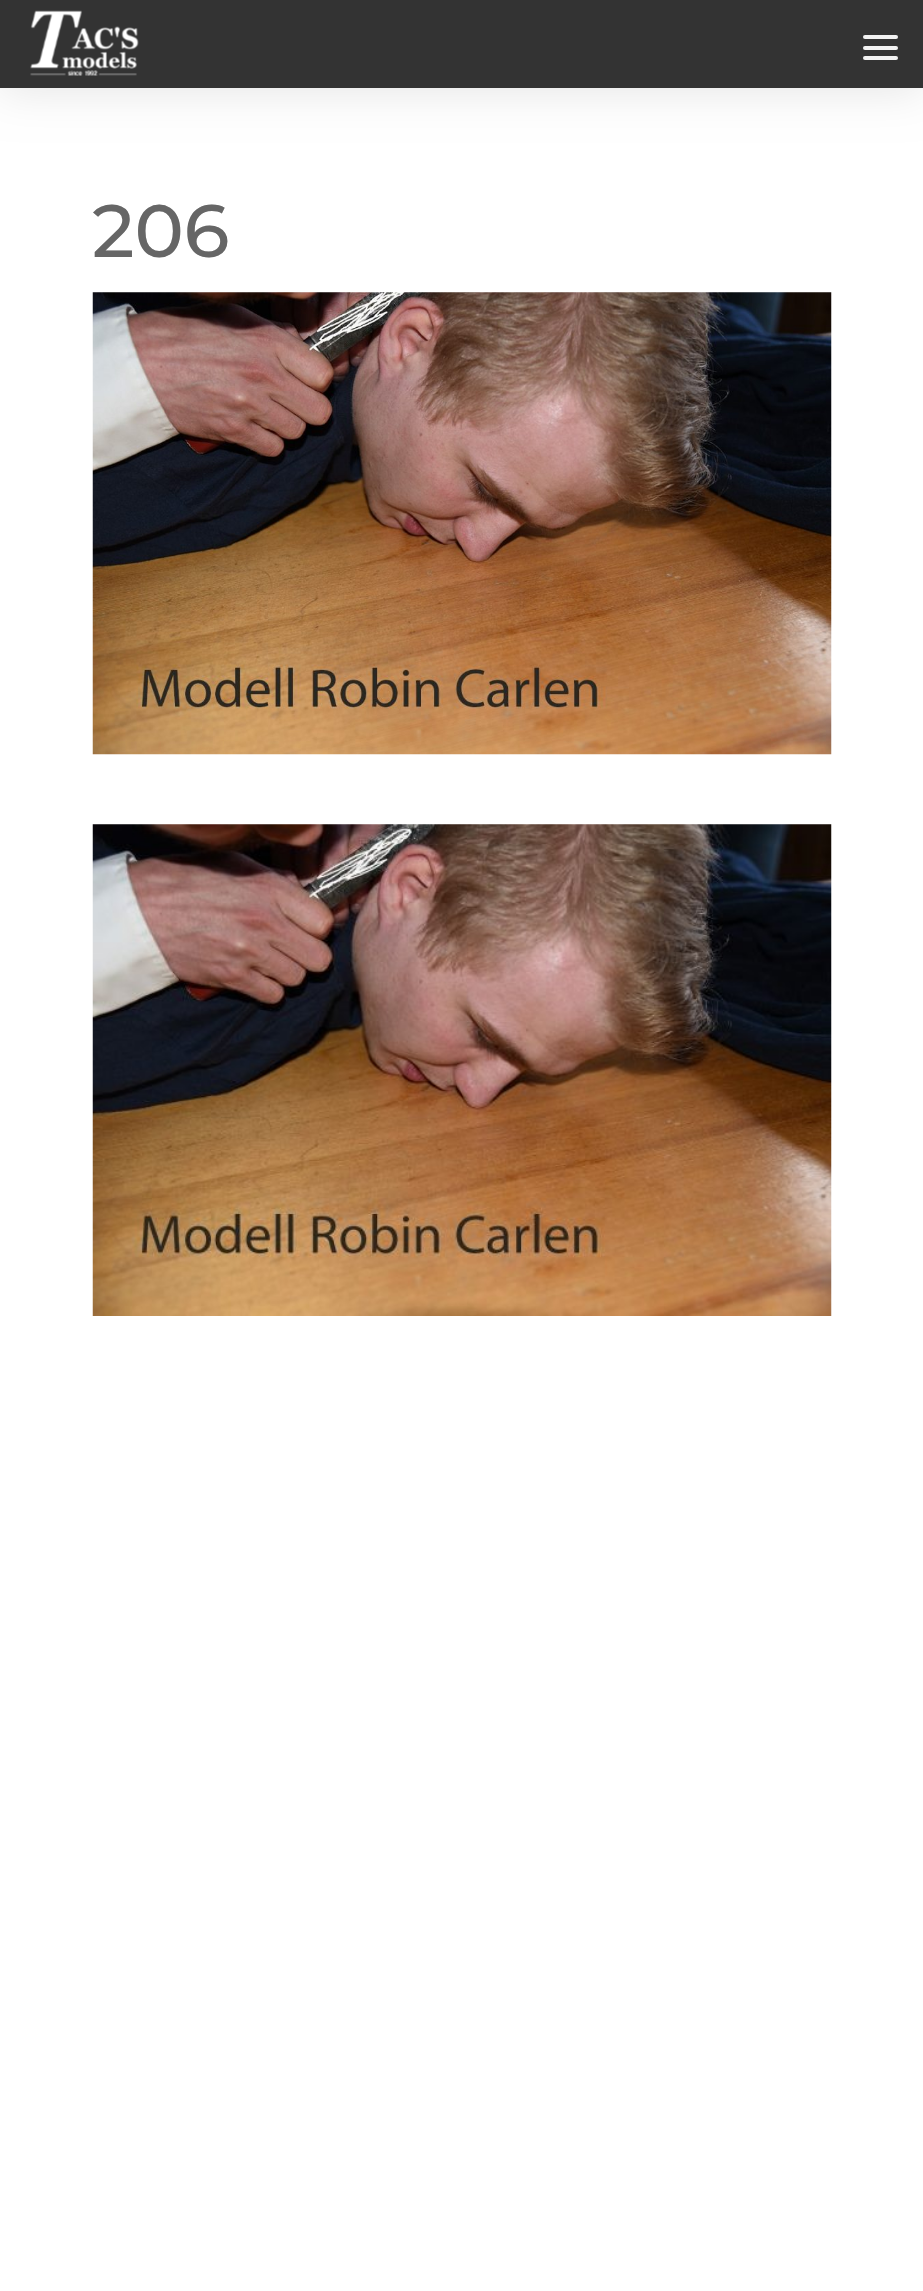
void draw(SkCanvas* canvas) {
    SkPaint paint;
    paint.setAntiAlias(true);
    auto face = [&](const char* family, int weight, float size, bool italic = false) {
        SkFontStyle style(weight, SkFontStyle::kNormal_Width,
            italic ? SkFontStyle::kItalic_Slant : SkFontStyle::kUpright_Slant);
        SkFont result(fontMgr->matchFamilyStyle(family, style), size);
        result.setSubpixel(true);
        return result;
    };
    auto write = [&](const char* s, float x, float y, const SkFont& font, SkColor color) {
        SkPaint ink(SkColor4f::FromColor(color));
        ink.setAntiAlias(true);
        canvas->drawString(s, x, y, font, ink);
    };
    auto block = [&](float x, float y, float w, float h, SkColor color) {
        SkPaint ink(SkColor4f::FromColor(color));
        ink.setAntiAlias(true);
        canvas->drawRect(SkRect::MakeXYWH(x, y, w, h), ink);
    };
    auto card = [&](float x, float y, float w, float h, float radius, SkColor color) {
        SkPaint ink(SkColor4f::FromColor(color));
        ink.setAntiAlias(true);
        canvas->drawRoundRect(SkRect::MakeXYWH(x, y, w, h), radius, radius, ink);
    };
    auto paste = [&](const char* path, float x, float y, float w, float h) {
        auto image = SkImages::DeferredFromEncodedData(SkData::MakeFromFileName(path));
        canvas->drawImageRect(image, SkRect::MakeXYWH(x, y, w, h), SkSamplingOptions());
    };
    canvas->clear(SK_ColorWHITE);
    paint.setColor(SkColorSetARGB(26, 0, 0, 0));
    paint.setMaskFilter(SkMaskFilter::MakeBlur(kNormal_SkBlurStyle, 22));
    canvas->drawRect(SkRect::MakeXYWH(0, 4, 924, 87), paint);
    paint.setMaskFilter(nullptr);
    block(0, 0, 923, 88, SkColorSetRGB(51, 51, 51));
    paste("pic1.png", 30, 10, 109, 66);
    card(863, 56, 35, 4, 2, SkColorSetRGB(242, 242, 242));
    card(863, 35, 35, 4, 2, SkColorSetRGB(242, 242, 242));
    card(863, 46, 35, 4, 2, SkColorSetRGB(242, 242, 242));
    auto kFont1 = face("Montserrat", 500, 74);
    write("206", 92, 257, kFont1, SkColorSetRGB(102, 102, 102));
    paste("pic2.png", 92, 292, 740, 463);
    paste("pic3.png", 92, 824, 740, 492);
}
